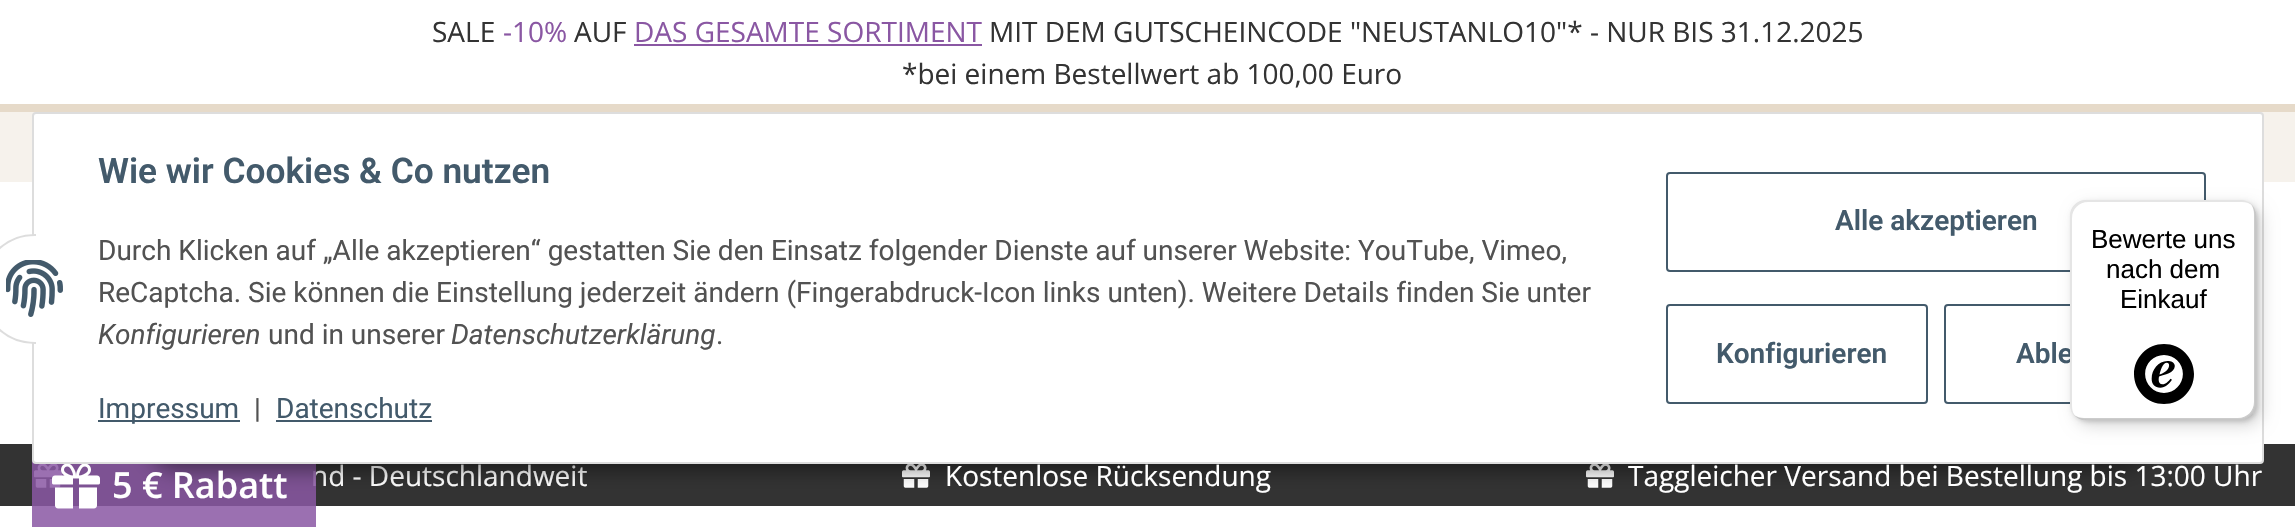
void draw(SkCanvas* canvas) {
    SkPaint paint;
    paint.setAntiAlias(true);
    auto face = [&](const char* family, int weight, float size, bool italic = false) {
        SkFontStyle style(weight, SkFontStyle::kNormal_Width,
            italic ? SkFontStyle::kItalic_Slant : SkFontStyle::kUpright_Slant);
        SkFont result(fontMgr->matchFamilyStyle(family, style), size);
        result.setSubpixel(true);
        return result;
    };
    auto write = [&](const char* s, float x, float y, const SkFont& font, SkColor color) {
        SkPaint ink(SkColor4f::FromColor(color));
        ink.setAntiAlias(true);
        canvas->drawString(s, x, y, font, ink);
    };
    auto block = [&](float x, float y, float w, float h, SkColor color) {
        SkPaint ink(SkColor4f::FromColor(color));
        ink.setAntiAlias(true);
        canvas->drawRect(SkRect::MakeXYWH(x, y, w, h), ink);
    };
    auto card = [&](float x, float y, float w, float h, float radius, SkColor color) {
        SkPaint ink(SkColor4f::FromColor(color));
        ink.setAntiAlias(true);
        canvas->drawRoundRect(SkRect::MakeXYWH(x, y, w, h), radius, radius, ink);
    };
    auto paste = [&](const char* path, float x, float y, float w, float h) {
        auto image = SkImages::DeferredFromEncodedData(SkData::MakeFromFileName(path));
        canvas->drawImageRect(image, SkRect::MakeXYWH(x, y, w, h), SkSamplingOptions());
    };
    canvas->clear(SK_ColorWHITE);
    auto kFont1 = face("Open Sans", 400, 28);
    write("SALE", 432, 42, kFont1, SkColorSetRGB(51, 51, 51));
    write("-10%", 503, 42, kFont1, SkColorSetRGB(138, 87, 163));
    write("AUF", 574, 42, kFont1, SkColorSetRGB(51, 51, 51));
    write("DAS GESAMTE SORTIMENT", 634, 42, kFont1, SkColorSetRGB(138, 87, 163));
    block(634, 44, 348, 2, SkColorSetRGB(138, 87, 163));
    write("MIT DEM GUTSCHEINCODE \"NEUSTANLO10\"* - NUR BIS 31.12.2025", 989, 42, kFont1, SkColorSetRGB(51, 51, 51));
    write("*bei einem Bestellwert ab 100,00 Euro", 902, 84, kFont1, SkColorSetRGB(51, 51, 51));
    block(0, 112, 2295, 70, SkColorSetRGB(246, 242, 236));
    block(0, 104, 2295, 8, SkColorSetRGB(230, 218, 201));
    block(0, 444, 2295, 62, SkColorSetRGB(51, 51, 51));
    paste("pic4.png", 34, 464, 28, 24);
    write("nd - Deutschlandweit", 311, 486, kFont1, SK_ColorWHITE);
    block(32, 460, 284, 67, SkColorSetARGB(217, 138, 87, 163));
    paste("pic4.png", 902, 464, 28, 24);
    paste("pic4.png", 1586, 464, 28, 24);
    paint.setColor(SkColorSetARGB(115, 0, 0, 0));
    paint.setMaskFilter(SkMaskFilter::MakeBlur(kNormal_SkBlurStyle, 10));
    canvas->drawRoundRect(SkRect::MakeXYWH(146, 406, 2004, 64), 32, 32, paint);
    paint.setMaskFilter(nullptr);
    paint.setColor(SK_ColorWHITE);
    canvas->drawRoundRect(SkRect::MakeXYWH(33, 113, 2230, 350), 3, 3, paint);
    paint.setStyle(SkPaint::kStroke_Style);
    paint.setStrokeWidth(2);
    paint.setColor(SkColorSetRGB(221, 221, 221));
    canvas->drawRoundRect(SkRect::MakeXYWH(33, 113, 2230, 350), 3, 3, paint);
    paint.setStyle(SkPaint::kFill_Style);
    paint.setColor(SK_ColorWHITE);
    canvas->drawCircle(35, 289, 54, paint);
    paint.setStyle(SkPaint::kStroke_Style);
    paint.setColor(SkColorSetRGB(221, 221, 221));
    canvas->drawCircle(35, 289, 54, paint);
    block(36, 234, 54, 110, SK_ColorWHITE);
    paste("pic1.png", 6, 260, 57, 57);
    auto kFont2 = face("Roboto", 600, 35.25f);
    write("Wie wir Cookies & Co nutzen", 98, 183, kFont2, SkColorSetRGB(67, 90, 107));
    auto kFont3 = face("Roboto", 400, 28);
    write("Durch Klicken auf „Alle akzeptieren“ gestatten Sie den Einsatz folgender Dienste auf unserer Website: YouTube, Vimeo,", 98, 260, kFont3, SkColorSetRGB(82, 82, 82));
    write("ReCaptcha. Sie können die Einstellung jederzeit ändern (Fingerabdruck-Icon links unten). Weitere Details finden Sie unter", 98, 302, kFont3, SkColorSetRGB(82, 82, 82));
    auto kFont4 = face("Roboto", 400, 28, true);
    write("Konfigurieren", 98, 344, kFont4, SkColorSetRGB(82, 82, 82));
    write("und in unserer", 268, 344, kFont3, SkColorSetRGB(82, 82, 82));
    write("Datenschutzerklärung", 451, 344, kFont4, SkColorSetRGB(82, 82, 82));
    write(".", 716, 344, kFont3, SkColorSetRGB(82, 82, 82));
    block(98, 420, 142, 2, SkColorSetRGB(67, 90, 107));
    write("Impressum", 98, 418, kFont3, SkColorSetRGB(67, 90, 107));
    write("|", 254, 418, kFont3, SkColorSetRGB(82, 82, 82));
    write("Datenschutz", 276, 418, kFont3, SkColorSetRGB(67, 90, 107));
    block(276, 420, 156, 2, SkColorSetRGB(67, 90, 107));
    paint.setColor(SkColorSetRGB(67, 90, 107));
    canvas->drawRoundRect(SkRect::MakeXYWH(1667, 173, 538, 98), 3, 3, paint);
    auto kFont5 = face("Roboto", 600, 28);
    write("Alle akzeptieren", 1835, 230, kFont5, SkColorSetRGB(67, 90, 107));
    canvas->drawRoundRect(SkRect::MakeXYWH(1667, 305, 260, 98), 3, 3, paint);
    write("Konfigurieren", 1716, 363, kFont5, SkColorSetRGB(67, 90, 107));
    canvas->drawRoundRect(SkRect::MakeXYWH(1945, 305, 260, 98), 3, 3, paint);
    write("Able", 2016, 363, kFont5, SkColorSetRGB(67, 90, 107));
    paint.setStyle(SkPaint::kFill_Style);
    paint.setColor(SkColorSetARGB(38, 0, 0, 0));
    paint.setMaskFilter(SkMaskFilter::MakeBlur(kNormal_SkBlurStyle, 8));
    canvas->drawRoundRect(SkRect::MakeXYWH(2076, 206, 186, 220), 16, 16, paint);
    paint.setMaskFilter(nullptr);
    paint.setMaskFilter(SkMaskFilter::MakeBlur(kNormal_SkBlurStyle, 2));
    canvas->drawRoundRect(SkRect::MakeXYWH(2072, 202, 186, 220), 16, 16, paint);
    paint.setMaskFilter(nullptr);
    card(2070, 200, 186, 220, 16, SK_ColorWHITE);
    paint.setColor(SkColorSetARGB(26, 0, 0, 0));
    canvas->drawPath(SkPathBuilder().moveTo(2088, 202).lineTo(2242, 202).cubicTo(2246, 202, 2249, 203, 2252, 205).cubicTo(2249, 202, 2245, 200, 2240, 200).lineTo(2086, 200).cubicTo(2077, 200, 2070, 207, 2070, 216).lineTo(2070, 404).cubicTo(2070, 409, 2072, 413, 2075, 416).cubicTo(2073, 413, 2072, 410, 2072, 406).lineTo(2072, 218).cubicTo(2072, 209, 2079, 202, 2088, 202).close().detach(), paint);
    paint.setColor(SkColorSetARGB(51, 0, 0, 0));
    canvas->drawPath(SkPathBuilder().moveTo(2074, 415).cubicTo(2077, 418, 2081, 420, 2086, 420).lineTo(2240, 420).cubicTo(2249, 420, 2256, 413, 2256, 404).lineTo(2256, 216).cubicTo(2256, 211, 2254, 207, 2251, 204).cubicTo(2253, 207, 2254, 210, 2254, 214).lineTo(2254, 402).cubicTo(2254, 411, 2247, 418, 2238, 418).lineTo(2084, 418).cubicTo(2080, 418, 2077, 417, 2074, 415).close().detach(), paint);
    paint.setColor(SkColorSetARGB(51, 50, 50, 50));
    canvas->drawPath(SkPathBuilder().moveTo(2075, 415).cubicTo(2078, 418, 2082, 420, 2086, 420).lineTo(2240, 420).cubicTo(2249, 420, 2256, 413, 2256, 404).lineTo(2256, 216).cubicTo(2256, 212, 2254, 208, 2251, 205).cubicTo(2254, 208, 2255, 211, 2255, 215).lineTo(2255, 403).cubicTo(2255, 412, 2248, 419, 2239, 419).lineTo(2085, 419).cubicTo(2081, 419, 2078, 418, 2075, 415).close().detach(), paint);
    paint.setColor(SkColorSetARGB(77, 255, 255, 255));
    canvas->drawPath(SkPathBuilder().moveTo(2075, 415).cubicTo(2078, 418, 2082, 420, 2086, 420).lineTo(2240, 420).cubicTo(2249, 420, 2256, 413, 2256, 404).lineTo(2256, 216).cubicTo(2256, 212, 2254, 208, 2251, 205).cubicTo(2254, 208, 2255, 211, 2255, 215).lineTo(2255, 403).cubicTo(2255, 412, 2248, 419, 2239, 419).lineTo(2085, 419).cubicTo(2081, 419, 2078, 418, 2075, 415).close().detach(), paint);
    auto kFont6 = face("Liberation Sans", 400, 26);
    write("Bewerte uns", 2091, 248, kFont6, SK_ColorBLACK);
    write("nach dem", 2106, 278, kFont6, SK_ColorBLACK);
    write("Einkauf", 2120, 308, kFont6, SK_ColorBLACK);
    paste("pic2.png", 2134, 344, 60, 60);
    paste("pic3.png", 52, 464, 48, 45);
    auto kFont7 = face("Open Sans", 600, 36);
    write("5 € Rabatt", 112, 498, kFont7, SK_ColorWHITE);
    write("Kostenlose Rücksendung", 945, 486, kFont1, SK_ColorWHITE);
    write("Taggleicher Versand bei Bestellung bis 13:00 Uhr", 1628, 486, kFont1, SK_ColorWHITE);
}
